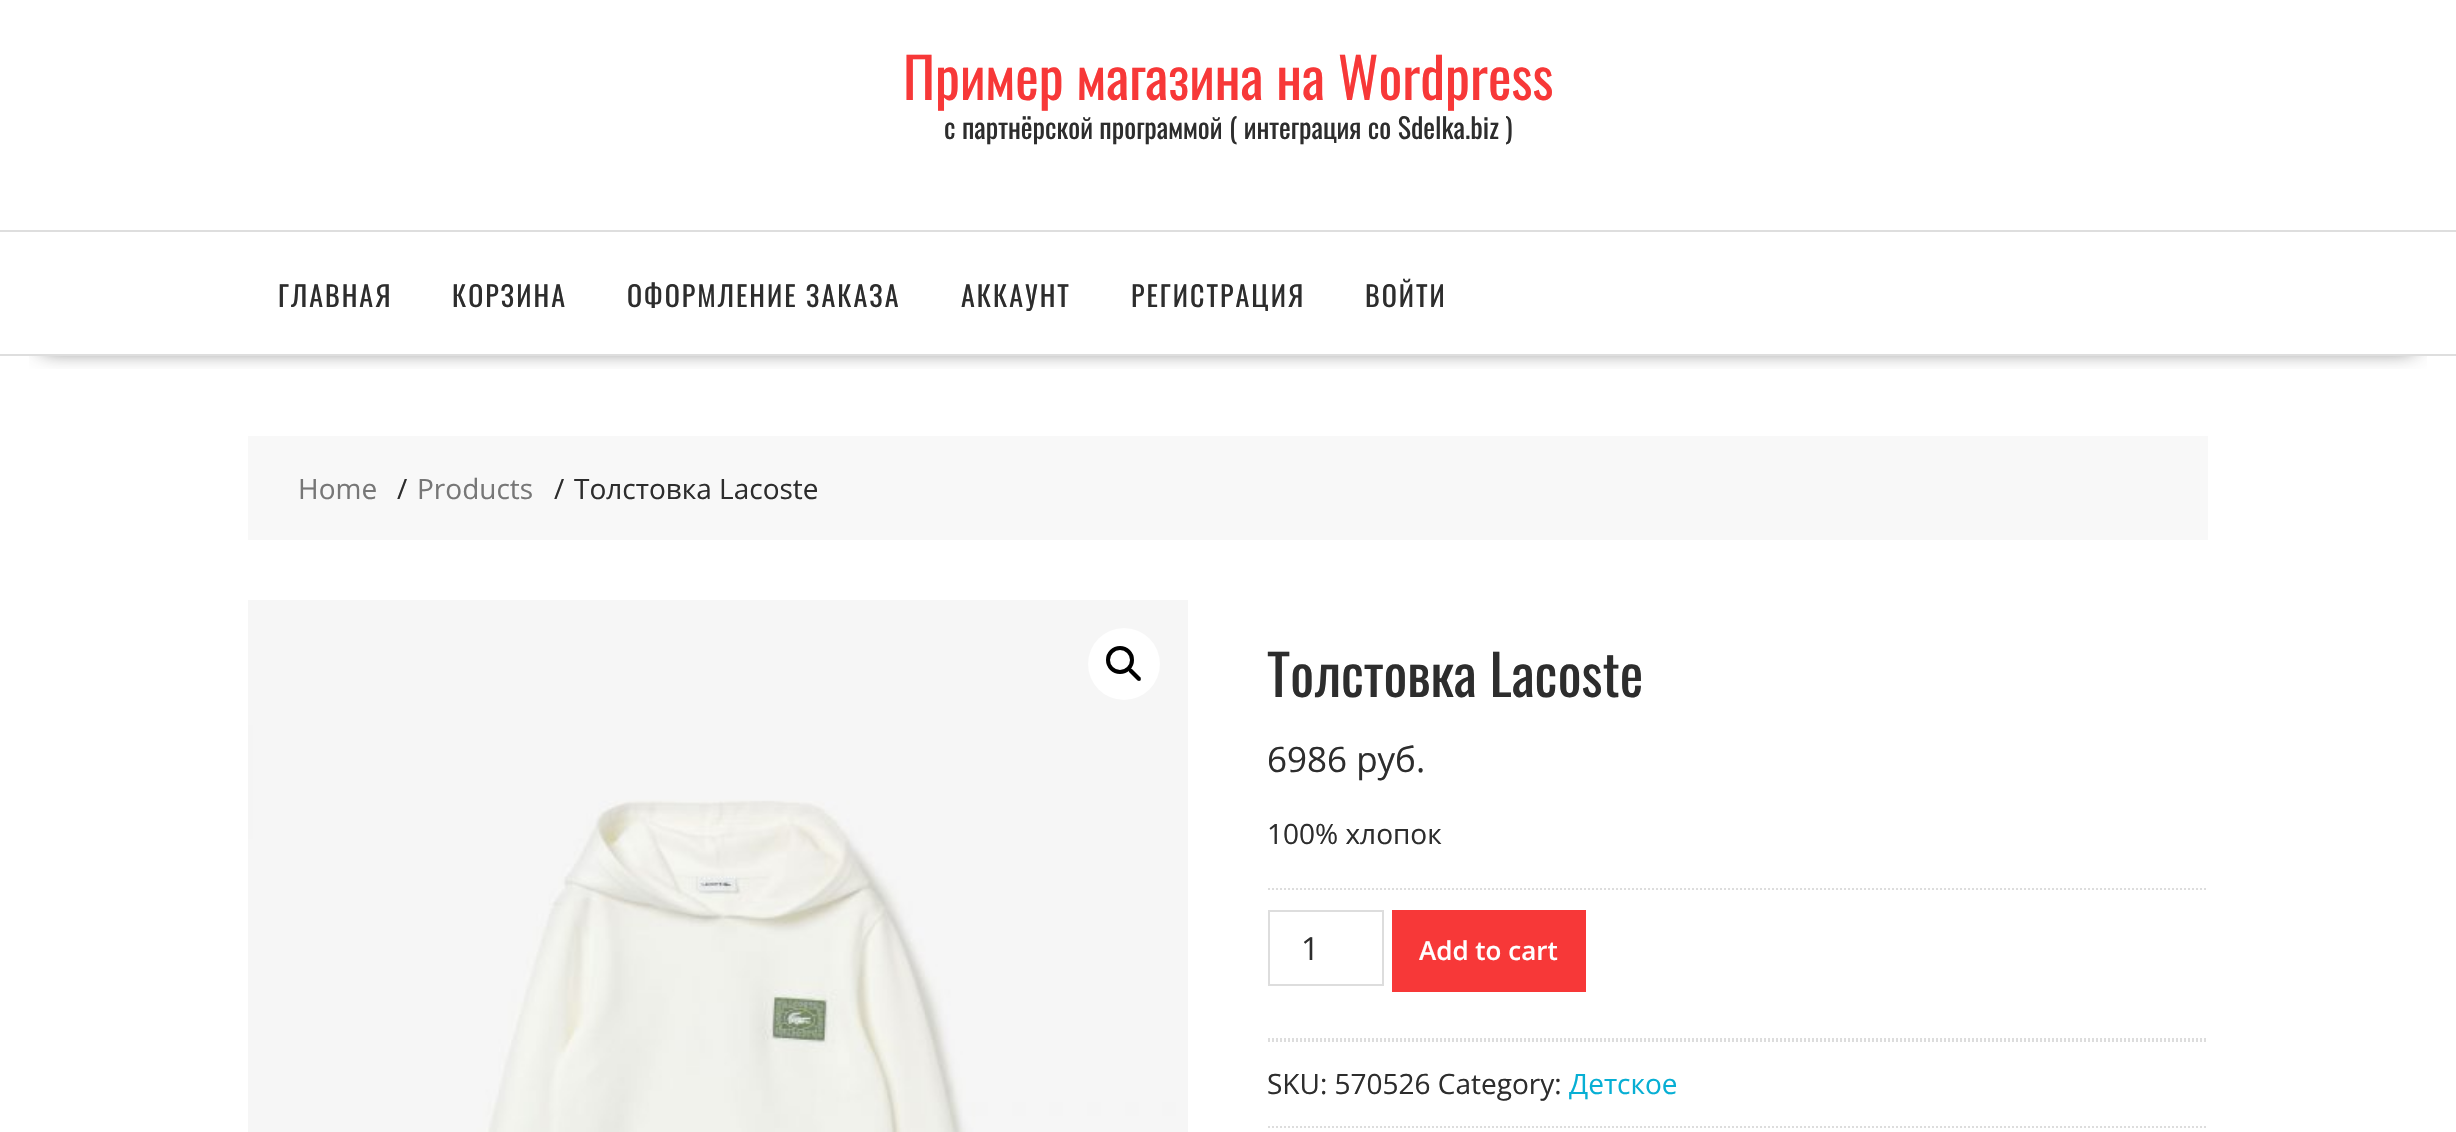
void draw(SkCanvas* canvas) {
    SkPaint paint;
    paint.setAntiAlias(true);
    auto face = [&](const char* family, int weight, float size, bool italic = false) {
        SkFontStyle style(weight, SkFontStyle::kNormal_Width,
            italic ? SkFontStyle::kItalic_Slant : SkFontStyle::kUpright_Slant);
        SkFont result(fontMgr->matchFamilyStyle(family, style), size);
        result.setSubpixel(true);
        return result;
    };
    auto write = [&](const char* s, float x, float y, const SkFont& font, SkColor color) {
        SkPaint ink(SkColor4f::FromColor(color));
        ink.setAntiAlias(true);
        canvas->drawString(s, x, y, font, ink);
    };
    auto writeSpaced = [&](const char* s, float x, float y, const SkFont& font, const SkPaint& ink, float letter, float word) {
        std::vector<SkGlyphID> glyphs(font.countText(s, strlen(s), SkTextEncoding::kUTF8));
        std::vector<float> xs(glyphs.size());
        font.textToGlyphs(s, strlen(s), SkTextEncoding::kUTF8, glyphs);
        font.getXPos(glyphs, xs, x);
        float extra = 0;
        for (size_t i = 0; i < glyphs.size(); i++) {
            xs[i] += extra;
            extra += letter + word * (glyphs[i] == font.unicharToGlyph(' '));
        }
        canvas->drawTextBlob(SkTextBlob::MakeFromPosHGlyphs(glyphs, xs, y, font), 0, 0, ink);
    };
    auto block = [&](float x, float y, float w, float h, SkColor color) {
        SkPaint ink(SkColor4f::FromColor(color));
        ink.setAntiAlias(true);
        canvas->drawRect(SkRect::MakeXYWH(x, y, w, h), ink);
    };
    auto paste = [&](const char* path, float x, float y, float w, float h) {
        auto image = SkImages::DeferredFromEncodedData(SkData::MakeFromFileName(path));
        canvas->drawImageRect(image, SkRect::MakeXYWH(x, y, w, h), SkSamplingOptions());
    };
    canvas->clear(SK_ColorWHITE);
    auto kFont1 = face("Oswald", 400, 56);
    write("Пример магазина на Wordpress", 903, 100, kFont1, SkColorSetRGB(247, 56, 56));
    auto kFont2 = face("Oswald", 400, 28);
    write("с партнёрской программой ( интеграция со Sdelka.biz )", 944, 139, kFont2, SkColorSetRGB(45, 45, 45));
    canvas->save();
    canvas->clipRect(SkRect::MakeXYWH(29, 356, 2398, 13));
    paint.setColor(SkColorSetARGB(191, 0, 0, 0));
    paint.setMaskFilter(SkMaskFilter::MakeBlur(kNormal_SkBlurStyle, 11));
    canvas->drawRect(SkRect::MakeXYWH(42, 306, 2372, 42), paint);
    paint.setMaskFilter(nullptr);
    canvas->restore();
    block(0, 230, 2456, 2, SkColorSetRGB(222, 222, 222));
    block(0, 354, 2456, 2, SkColorSetRGB(222, 222, 222));
    paint.setColor(SkColorSetRGB(45, 45, 45));
    writeSpaced("ГЛАВНАЯ", 278, 307, kFont2, paint, 2, 0);
    writeSpaced("КОРЗИНА", 452, 307, kFont2, paint, 2, 0);
    writeSpaced("ОФОРМЛЕНИЕ ЗАКАЗА", 627, 307, kFont2, paint, 2, 0);
    writeSpaced("АККАУНТ", 961, 307, kFont2, paint, 2, 0);
    writeSpaced("РЕГИСТРАЦИЯ", 1131, 307, kFont2, paint, 2, 0);
    writeSpaced("ВОЙТИ", 1365, 307, kFont2, paint, 2, 0);
    block(248, 436, 1960, 104, SkColorSetRGB(248, 248, 248));
    auto kFont3 = face("Open Sans", 400, 28);
    write("Home", 298, 499, kFont3, SkColorSetRGB(119, 119, 119));
    write("/", 397, 499, kFont3, SkColorSetRGB(45, 45, 45));
    write("Products", 417, 499, kFont3, SkColorSetRGB(119, 119, 119));
    write("/", 554, 499, kFont3, SkColorSetRGB(45, 45, 45));
    write("Толстовка Lacoste", 574, 499, kFont3, SkColorSetRGB(45, 45, 45));
    paste("pic1.png", 248, 600, 940, 532);
    paint.setColor(SK_ColorWHITE);
    canvas->drawCircle(1124, 664, 36, paint);
    paint.setStyle(SkPaint::kStroke_Style);
    paint.setStrokeWidth(4);
    paint.setColor(SK_ColorBLACK);
    canvas->drawCircle(1120, 660, 12, paint);
    paint.setStyle(SkPaint::kFill_Style);
    canvas->drawPath(SkPathBuilder().moveTo(1129, 669).cubicTo(1130, 668.5f, 1131, 668.5f, 1132, 669).lineTo(1140.5f, 677.5f).cubicTo(1141, 678.5f, 1141, 679.5f, 1140.5f, 680.5f).cubicTo(1139.5f, 681, 1138.5f, 681, 1137.5f, 680.5f).lineTo(1129, 672).cubicTo(1128.5f, 671, 1128.5f, 670, 1129, 669).close().detach(), paint);
    write("Толстовка Lacoste", 1267, 697, kFont1, SkColorSetRGB(45, 45, 45));
    auto kFont4 = face("Open Sans", 400, 35);
    write("6986 руб.", 1267, 772, kFont4, SkColorSetRGB(45, 45, 45));
    write("100% хлопок", 1267, 844, kFont3, SkColorSetRGB(45, 45, 45));
    paint.setStyle(SkPaint::kStroke_Style);
    paint.setStrokeWidth(2);
    paint.setColor(SkColorSetRGB(221, 221, 221));
    paint.setPathEffect(SkDashPathEffect::Make({{2, 2}}, 0));
    canvas->drawPath(SkPathBuilder().moveTo(1268, 889).lineTo(2208, 889).detach(), paint);
    paint.setPathEffect(nullptr);
    paint.setPathEffect(SkDashPathEffect::Make({{2, 2}}, 0));
    canvas->drawPath(SkPathBuilder().moveTo(1268, 1039).lineTo(2208, 1039).detach(), paint);
    paint.setPathEffect(nullptr);
    canvas->drawRect(SkRect::MakeXYWH(1269, 911, 114, 74), paint);
    auto kFont5 = face("Open Sans", 400, 32);
    write("1", 1301, 960, kFont5, SkColorSetRGB(45, 45, 45));
    block(1392, 910, 194, 82, SkColorSetRGB(247, 56, 56));
    auto kFont6 = face("Open Sans", 600, 26);
    write("Add to cart", 1419, 960, kFont6, SK_ColorWHITE);
    paint.setPathEffect(SkDashPathEffect::Make({{2, 2}}, 0));
    canvas->drawPath(SkPathBuilder().moveTo(1268, 1041).lineTo(2208, 1041).detach(), paint);
    paint.setPathEffect(nullptr);
    paint.setPathEffect(SkDashPathEffect::Make({{2, 2}}, 0));
    canvas->drawPath(SkPathBuilder().moveTo(1268, 1127).lineTo(2208, 1127).detach(), paint);
    paint.setPathEffect(nullptr);
    write("SKU: 570526 Category:", 1267, 1094, kFont3, SkColorSetRGB(45, 45, 45));
    write("Детское", 1569, 1094, kFont3, SkColorSetRGB(7, 175, 212));
}
